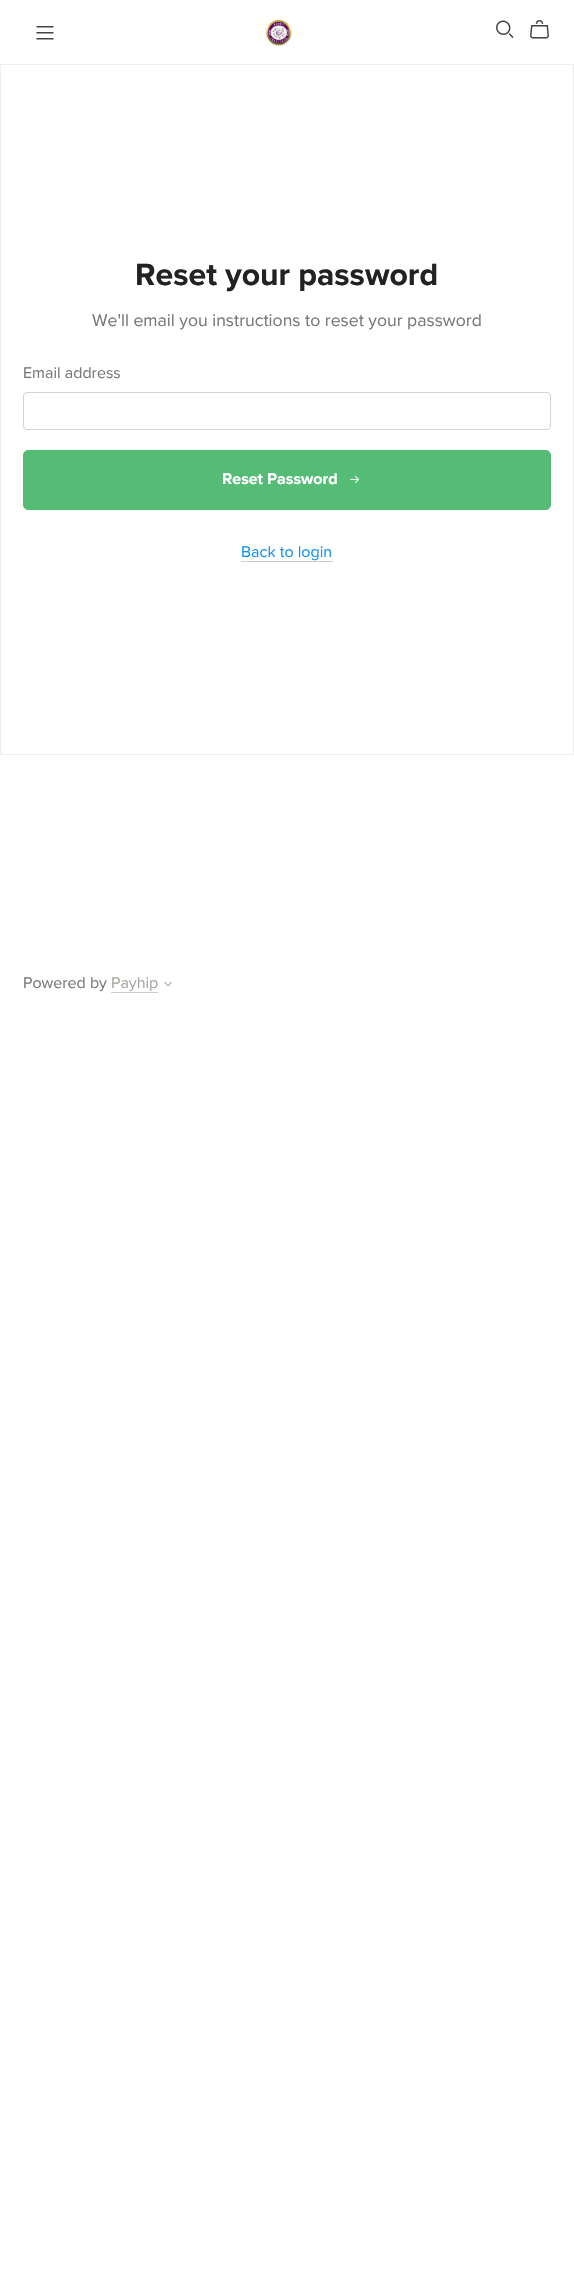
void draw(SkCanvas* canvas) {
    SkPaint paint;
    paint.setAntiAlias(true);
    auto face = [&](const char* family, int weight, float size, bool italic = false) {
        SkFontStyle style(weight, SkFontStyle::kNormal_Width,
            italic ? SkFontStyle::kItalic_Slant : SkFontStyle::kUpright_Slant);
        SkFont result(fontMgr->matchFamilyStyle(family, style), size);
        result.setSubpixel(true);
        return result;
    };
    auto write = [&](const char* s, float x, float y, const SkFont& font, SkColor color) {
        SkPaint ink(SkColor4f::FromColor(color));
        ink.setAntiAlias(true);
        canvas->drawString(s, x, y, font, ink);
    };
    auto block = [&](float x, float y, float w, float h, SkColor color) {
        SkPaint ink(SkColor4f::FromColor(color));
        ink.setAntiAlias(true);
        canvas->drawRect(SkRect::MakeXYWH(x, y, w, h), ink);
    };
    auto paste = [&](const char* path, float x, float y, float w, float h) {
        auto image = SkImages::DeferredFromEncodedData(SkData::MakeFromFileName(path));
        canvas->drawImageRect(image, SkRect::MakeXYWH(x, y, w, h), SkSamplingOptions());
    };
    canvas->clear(SK_ColorWHITE);
    paste("pic1.png", 36, 26, 18, 14);
    paste("pic2.png", 265, 19, 27, 27);
    paste("pic3.png", 496, 20, 18, 18);
    paste("pic4.png", 530, 20, 19, 19);
    paint.setStyle(SkPaint::kStroke_Style);
    paint.setStrokeWidth(1);
    paint.setColor(SkColorSetRGB(238, 238, 238));
    canvas->drawRect(SkRect::MakeXYWH(0.5f, 64.5f, 573, 690), paint);
    auto kFont1 = face("Proxima Nova", 700, 32);
    write("Reset your password", 135, 285, kFont1, SkColorSetRGB(34, 34, 34));
    auto kFont2 = face("Proxima Nova", 400, 17.6f);
    write("We'll email you instructions to reset your password", 92, 326, kFont2, SkColorSetRGB(121, 120, 117));
    auto kFont3 = face("Proxima Nova", 400, 16);
    write("Email address", 23, 378, kFont3, SkColorSetRGB(121, 120, 117));
    paint.setColor(SkColorSetRGB(206, 212, 218));
    canvas->drawRoundRect(SkRect::MakeXYWH(23.5f, 392.5f, 527, 37), 3.5f, 3.5f, paint);
    paint.setStyle(SkPaint::kFill_Style);
    paint.setColor(SkColorSetRGB(85, 188, 117));
    canvas->drawRoundRect(SkRect::MakeXYWH(23.5f, 450.5f, 527, 59), 4.5f, 4.5f, paint);
    paint.setStyle(SkPaint::kStroke_Style);
    canvas->drawRoundRect(SkRect::MakeXYWH(23.5f, 450.5f, 527, 59), 4.5f, 4.5f, paint);
    auto kFont4 = face("Proxima Nova", 700, 16);
    write("Reset Password", 222, 484, kFont4, SK_ColorWHITE);
    paste("pic5.png", 350, 475, 9, 8);
    write("Back to login", 241, 557, kFont3, SkColorSetRGB(18, 146, 238));
    block(241, 561, 92, 1, SkColorSetRGB(204, 204, 204));
    write("Powered by", 23, 988, kFont3, SkColorSetRGB(121, 120, 117));
    write("Payhip", 111, 988, kFont3, SkColorSetRGB(168, 166, 161));
    block(111, 992, 47, 1, SkColorSetRGB(204, 204, 204));
    paste("pic6.png", 164, 981, 8, 6);
}
